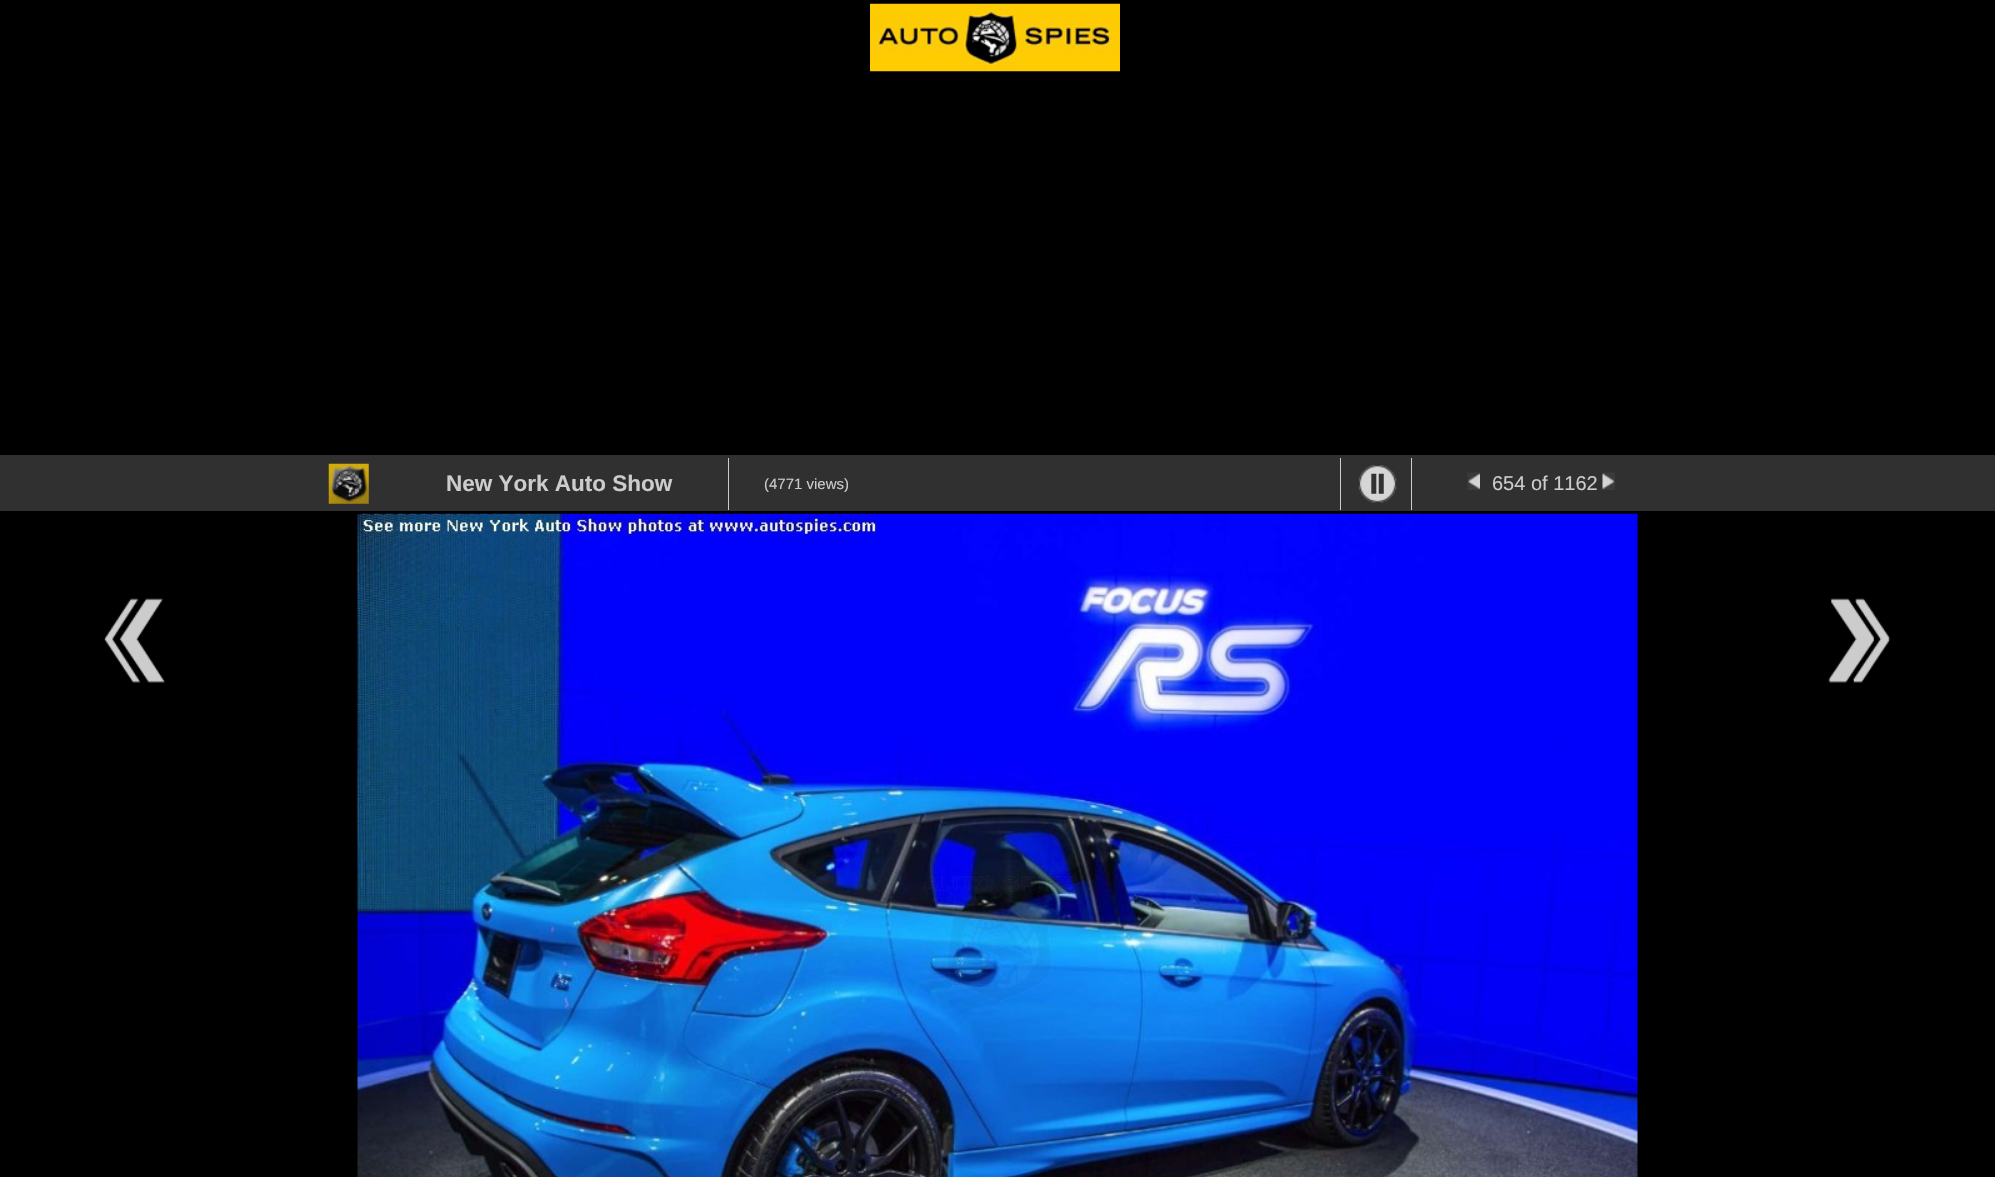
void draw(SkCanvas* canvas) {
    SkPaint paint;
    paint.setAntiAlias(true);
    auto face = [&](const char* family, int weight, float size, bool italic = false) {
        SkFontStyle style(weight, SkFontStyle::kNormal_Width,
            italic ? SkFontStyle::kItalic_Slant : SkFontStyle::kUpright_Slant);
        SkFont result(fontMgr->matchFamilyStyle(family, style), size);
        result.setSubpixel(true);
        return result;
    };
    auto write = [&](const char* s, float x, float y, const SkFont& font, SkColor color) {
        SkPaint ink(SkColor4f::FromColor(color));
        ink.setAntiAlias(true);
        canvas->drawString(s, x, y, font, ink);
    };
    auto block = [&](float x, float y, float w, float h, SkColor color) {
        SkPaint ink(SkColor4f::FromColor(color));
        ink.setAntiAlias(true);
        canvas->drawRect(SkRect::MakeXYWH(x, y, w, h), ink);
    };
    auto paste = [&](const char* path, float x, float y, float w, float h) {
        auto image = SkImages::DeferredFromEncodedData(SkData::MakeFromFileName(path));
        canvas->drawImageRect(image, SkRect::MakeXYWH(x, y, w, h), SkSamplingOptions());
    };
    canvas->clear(SK_ColorBLACK);
    paste("pic1.png", 870, 3, 250, 69);
    block(0, 455, 1995, 56, SkColorSetRGB(48, 48, 48));
    paste("pic2.png", 328, 463, 41, 41);
    block(728, 458, 1, 52, SkColorSetRGB(204, 204, 204));
    auto kFont1 = face("Liberation Sans", 700, 22.5f);
    write("New York Auto Show", 446, 491, kFont1, SkColorSetRGB(204, 204, 204));
    auto kFont2 = face("Liberation Sans", 400, 15);
    write("(4771 views)", 764, 489, kFont2, SkColorSetRGB(204, 204, 204));
    block(1340, 458, 1, 52, SkColorSetRGB(204, 204, 204));
    block(1411, 458, 1, 52, SkColorSetRGB(204, 204, 204));
    paste("pic3.png", 1358, 465, 39, 38);
    paste("pic4.png", 1467, 472, 13, 18);
    auto kFont3 = face("Liberation Sans", 400, 20);
    write("654 of 1162", 1492, 490, kFont3, SkColorSetRGB(204, 204, 204));
    paste("pic5.png", 1602, 472, 13, 18);
    paste("pic6.png", 357, 513, 1281, 664);
    paste("pic7.png", 104, 598, 61, 85);
    paste("pic8.png", 1828, 598, 63, 85);
}
